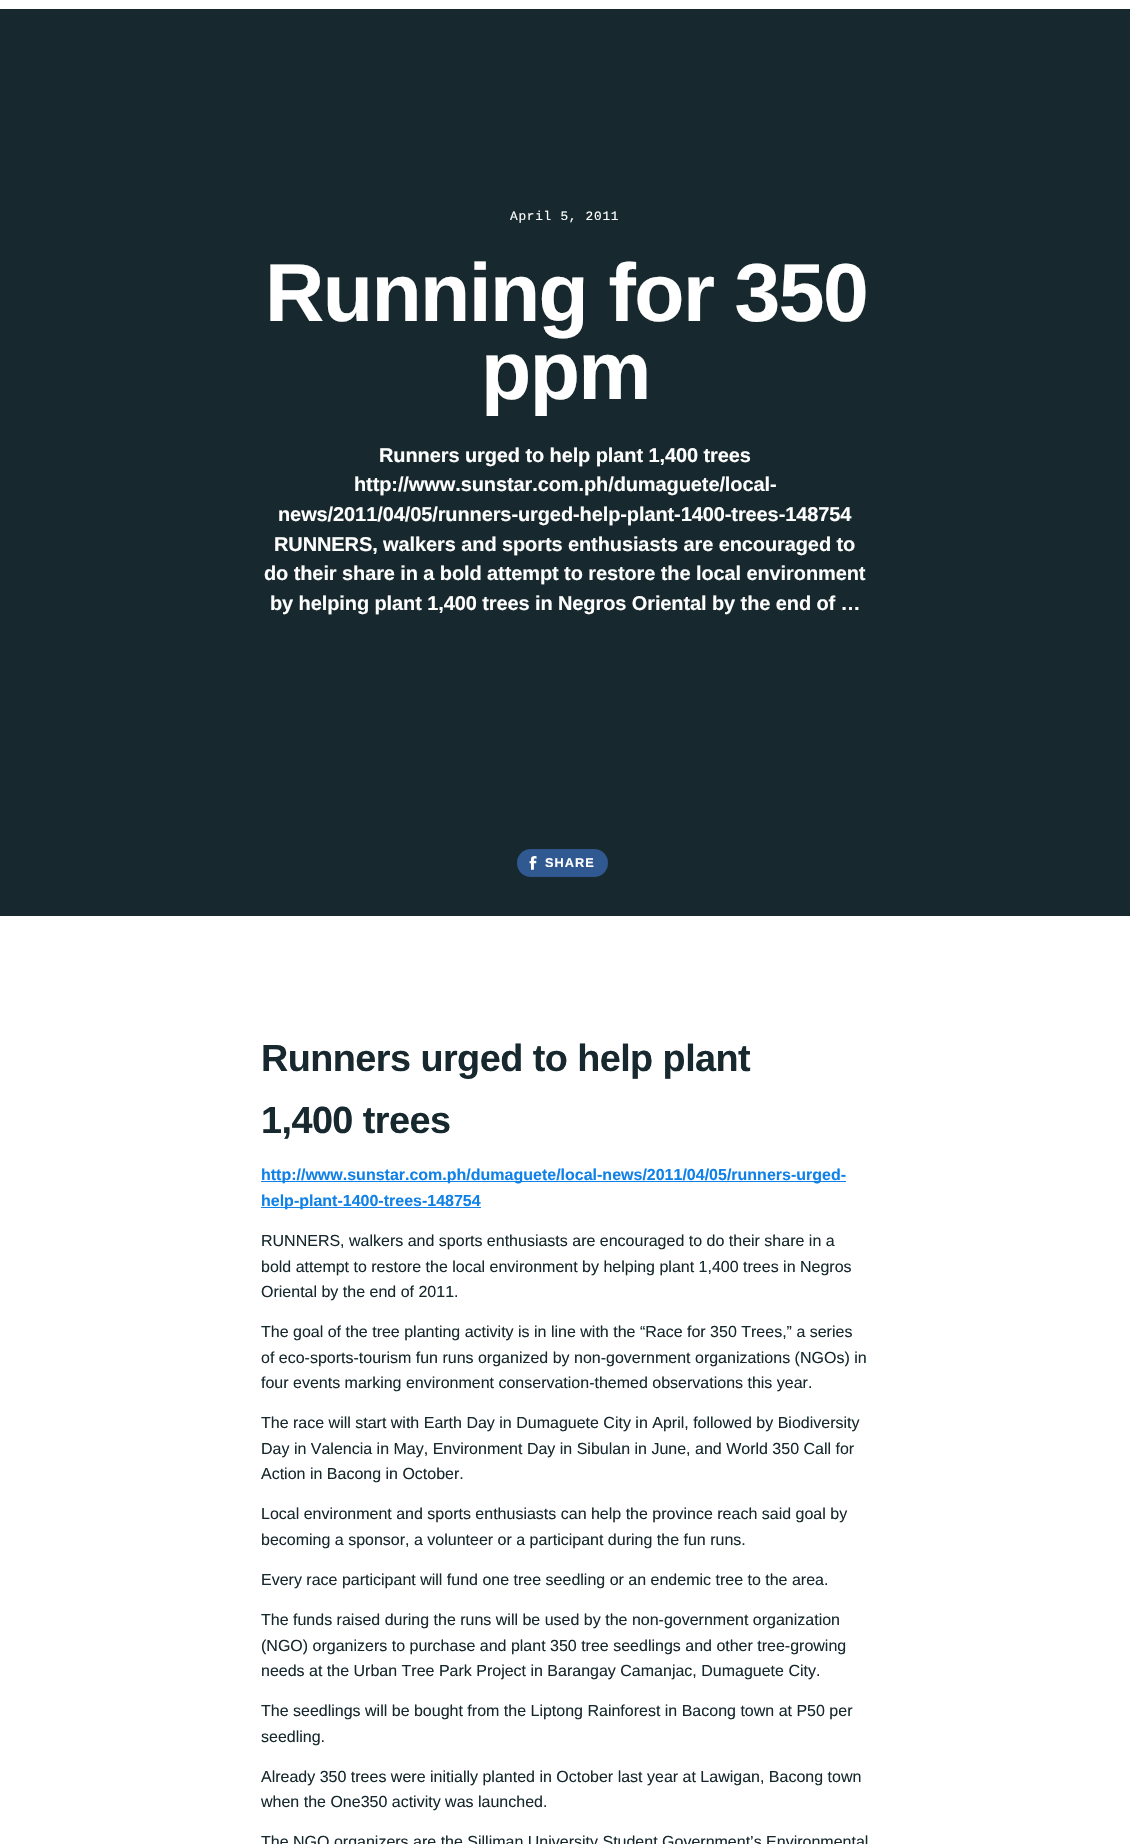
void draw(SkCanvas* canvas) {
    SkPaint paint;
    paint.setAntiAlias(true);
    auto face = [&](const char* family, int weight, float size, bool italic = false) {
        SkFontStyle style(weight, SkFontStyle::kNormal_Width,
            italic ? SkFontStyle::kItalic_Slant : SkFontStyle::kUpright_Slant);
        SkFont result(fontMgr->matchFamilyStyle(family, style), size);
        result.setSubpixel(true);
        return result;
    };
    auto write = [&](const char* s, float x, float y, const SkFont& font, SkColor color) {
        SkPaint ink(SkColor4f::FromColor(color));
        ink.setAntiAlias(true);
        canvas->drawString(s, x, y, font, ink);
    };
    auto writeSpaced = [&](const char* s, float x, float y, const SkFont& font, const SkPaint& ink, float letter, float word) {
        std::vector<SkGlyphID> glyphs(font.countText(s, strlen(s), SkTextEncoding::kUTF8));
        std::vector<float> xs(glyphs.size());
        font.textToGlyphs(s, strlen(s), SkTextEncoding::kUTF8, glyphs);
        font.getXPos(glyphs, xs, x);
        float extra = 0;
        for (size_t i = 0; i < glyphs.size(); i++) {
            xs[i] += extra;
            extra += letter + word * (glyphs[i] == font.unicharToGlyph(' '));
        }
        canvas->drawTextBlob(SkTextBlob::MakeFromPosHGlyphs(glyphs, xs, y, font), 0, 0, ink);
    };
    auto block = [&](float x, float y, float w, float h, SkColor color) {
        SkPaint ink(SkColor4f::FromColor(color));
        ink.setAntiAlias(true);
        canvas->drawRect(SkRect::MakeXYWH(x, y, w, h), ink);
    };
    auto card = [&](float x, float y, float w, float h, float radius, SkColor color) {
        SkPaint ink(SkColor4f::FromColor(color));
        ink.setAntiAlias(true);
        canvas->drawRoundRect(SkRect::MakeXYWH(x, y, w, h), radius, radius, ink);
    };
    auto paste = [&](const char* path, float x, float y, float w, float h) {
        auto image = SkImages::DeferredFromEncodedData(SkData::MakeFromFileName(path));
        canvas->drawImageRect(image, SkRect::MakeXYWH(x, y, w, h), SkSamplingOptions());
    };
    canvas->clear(SkColorSetRGB(23, 41, 46));
    block(0, 0, 1130, 9, SK_ColorWHITE);
    auto kFont1 = face("Liberation Mono", 400, 12.75f);
    paint.setColor(SK_ColorWHITE);
    writeSpaced("April 5, 2011", 510, 220, kFont1, paint, 0.75f, 0);
    auto kFont2 = face("Liberation Sans", 700, 82.25f);
    writeSpaced("Running for 350", 265, 321, kFont2, paint, -1.6f, 0);
    writeSpaced("ppm", 481, 399, kFont2, paint, -1.6f, 0);
    auto kFont3 = face("Liberation Sans", 700, 20);
    writeSpaced("Runners urged to help plant 1,400 trees", 379, 462, kFont3, paint, -0.1f, 0);
    writeSpaced("http://www.sunstar.com.ph/dumaguete/local-", 354, 491, kFont3, paint, -0.1f, 0);
    writeSpaced("news/2011/04/05/runners-urged-help-plant-1400-trees-148754", 278, 521, kFont3, paint, -0.1f, 0);
    writeSpaced("RUNNERS, walkers and sports enthusiasts are encouraged to", 274, 551, kFont3, paint, -0.1f, 0);
    writeSpaced("do their share in a bold attempt to restore the local environment", 264, 580, kFont3, paint, -0.1f, 0);
    writeSpaced("by helping plant 1,400 trees in Negros Oriental by the end of …", 270, 610, kFont3, paint, -0.1f, 0);
    card(517, 849, 91, 28, 14, SkColorSetRGB(48, 88, 145));
    paste("pic1.png", 529, 856, 8, 14);
    paint.setStyle(SkPaint::kStroke_Style);
    paint.setStrokeWidth(1);
    paint.setColor(SkColorSetARGB(13, 21, 46, 43));
    canvas->drawRect(SkRect::MakeXYWH(517.5f, 849.5f, 90, 27), paint);
    auto kFont4 = face("Liberation Sans", 700, 12.75f);
    paint.setStyle(SkPaint::kFill_Style);
    paint.setColor(SK_ColorWHITE);
    writeSpaced("SHARE", 545, 867, kFont4, paint, 1, 0);
    block(0, 916, 1130, 928, SK_ColorWHITE);
    auto kFont5 = face("Liberation Sans", 700, 37.8f);
    paint.setColor(SkColorSetRGB(23, 41, 46));
    writeSpaced("Runners urged to help plant", 261, 1071, kFont5, paint, -0.55f, 0);
    writeSpaced("1,400 trees", 261, 1133, kFont5, paint, -0.55f, 0);
    block(261, 1181, 585, 1, SkColorSetRGB(15, 129, 232));
    auto kFont6 = face("Liberation Sans", 700, 16);
    write("http://www.sunstar.com.ph/dumaguete/local-news/2011/04/05/runners-urged-", 261, 1180, kFont6, SkColorSetRGB(15, 129, 232));
    block(261, 1207, 220, 1, SkColorSetRGB(15, 129, 232));
    write("help-plant-1400-trees-148754", 261, 1206, kFont6, SkColorSetRGB(15, 129, 232));
    auto kFont7 = face("Liberation Sans", 400, 16);
    write("RUNNERS, walkers and sports enthusiasts are encouraged to do their share in a", 261, 1246, kFont7, SkColorSetRGB(23, 41, 46));
    write("bold attempt to restore the local environment by helping plant 1,400 trees in Negros", 261, 1272, kFont7, SkColorSetRGB(23, 41, 46));
    write("Oriental by the end of 2011.", 261, 1297, kFont7, SkColorSetRGB(23, 41, 46));
    write("The goal of the tree planting activity is in line with the “Race for 350 Trees,” a series", 261, 1337, kFont7, SkColorSetRGB(23, 41, 46));
    write("of eco-sports-tourism fun runs organized by non-government organizations (NGOs) in", 261, 1363, kFont7, SkColorSetRGB(23, 41, 46));
    write("four events marking environment conservation-themed observations this year.", 261, 1388, kFont7, SkColorSetRGB(23, 41, 46));
    write("The race will start with Earth Day in Dumaguete City in April, followed by Biodiversity", 261, 1428, kFont7, SkColorSetRGB(23, 41, 46));
    write("Day in Valencia in May, Environment Day in Sibulan in June, and World 350 Call for", 261, 1454, kFont7, SkColorSetRGB(23, 41, 46));
    write("Action in Bacong in October.", 261, 1479, kFont7, SkColorSetRGB(23, 41, 46));
    write("Local environment and sports enthusiasts can help the province reach said goal by", 261, 1519, kFont7, SkColorSetRGB(23, 41, 46));
    write("becoming a sponsor, a volunteer or a participant during the fun runs.", 261, 1545, kFont7, SkColorSetRGB(23, 41, 46));
    write("Every race participant will fund one tree seedling or an endemic tree to the area.", 261, 1585, kFont7, SkColorSetRGB(23, 41, 46));
    write("The funds raised during the runs will be used by the non-government organization", 261, 1625, kFont7, SkColorSetRGB(23, 41, 46));
    write("(NGO) organizers to purchase and plant 350 tree seedlings and other tree-growing", 261, 1651, kFont7, SkColorSetRGB(23, 41, 46));
    write("needs at the Urban Tree Park Project in Barangay Camanjac, Dumaguete City.", 261, 1676, kFont7, SkColorSetRGB(23, 41, 46));
    write("The seedlings will be bought from the Liptong Rainforest in Bacong town at P50 per", 261, 1716, kFont7, SkColorSetRGB(23, 41, 46));
    write("seedling.", 261, 1742, kFont7, SkColorSetRGB(23, 41, 46));
    write("Already 350 trees were initially planted in October last year at Lawigan, Bacong town", 261, 1782, kFont7, SkColorSetRGB(23, 41, 46));
    write("when the One350 activity was launched.", 261, 1807, kFont7, SkColorSetRGB(23, 41, 46));
    write("The NGO organizers are the Silliman University Student Government’s Environmental", 261, 1847, kFont7, SkColorSetRGB(23, 41, 46));
}
